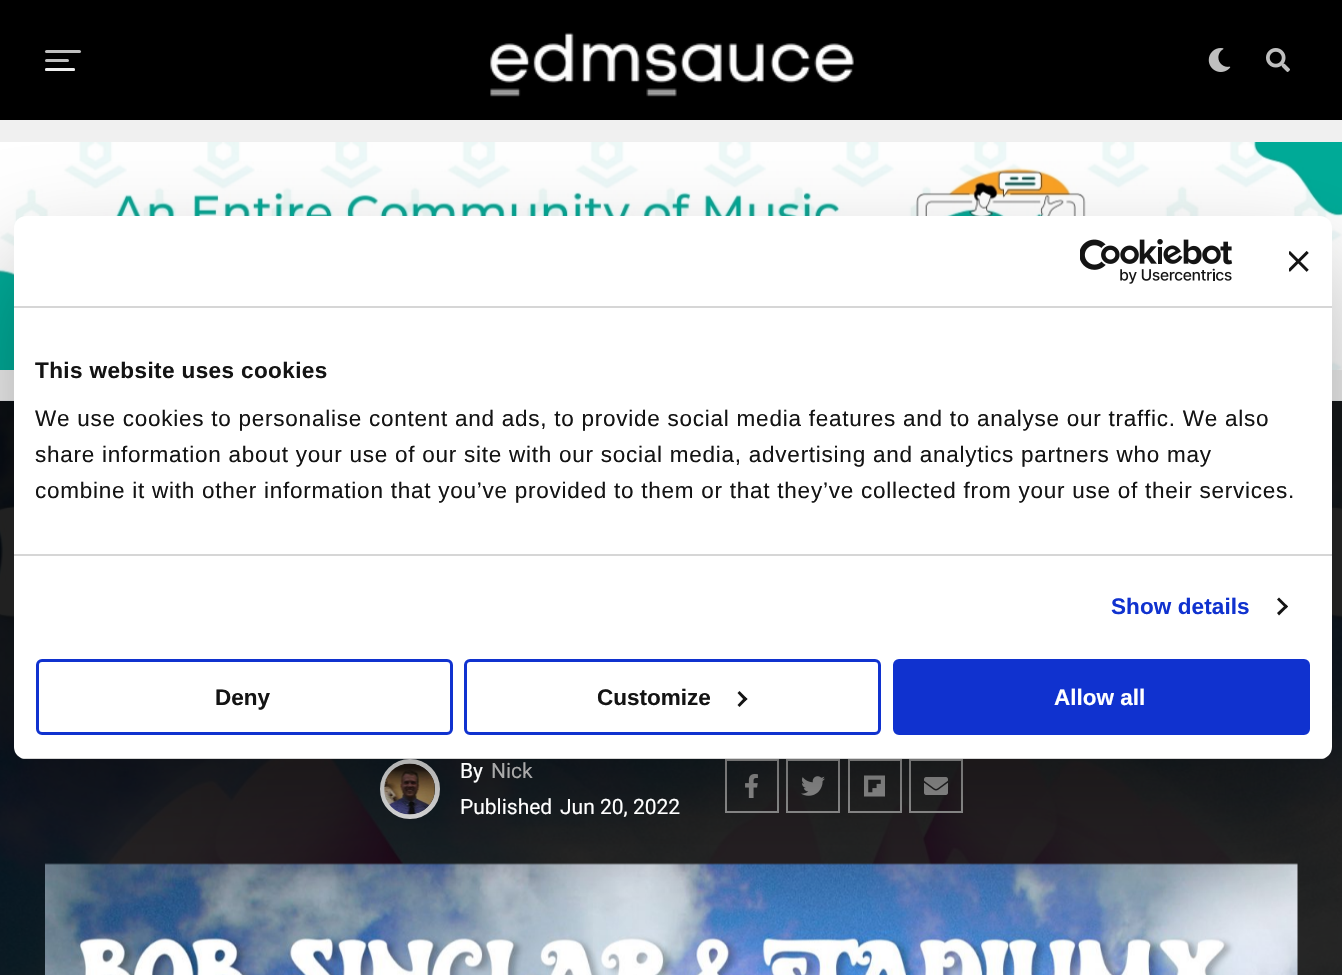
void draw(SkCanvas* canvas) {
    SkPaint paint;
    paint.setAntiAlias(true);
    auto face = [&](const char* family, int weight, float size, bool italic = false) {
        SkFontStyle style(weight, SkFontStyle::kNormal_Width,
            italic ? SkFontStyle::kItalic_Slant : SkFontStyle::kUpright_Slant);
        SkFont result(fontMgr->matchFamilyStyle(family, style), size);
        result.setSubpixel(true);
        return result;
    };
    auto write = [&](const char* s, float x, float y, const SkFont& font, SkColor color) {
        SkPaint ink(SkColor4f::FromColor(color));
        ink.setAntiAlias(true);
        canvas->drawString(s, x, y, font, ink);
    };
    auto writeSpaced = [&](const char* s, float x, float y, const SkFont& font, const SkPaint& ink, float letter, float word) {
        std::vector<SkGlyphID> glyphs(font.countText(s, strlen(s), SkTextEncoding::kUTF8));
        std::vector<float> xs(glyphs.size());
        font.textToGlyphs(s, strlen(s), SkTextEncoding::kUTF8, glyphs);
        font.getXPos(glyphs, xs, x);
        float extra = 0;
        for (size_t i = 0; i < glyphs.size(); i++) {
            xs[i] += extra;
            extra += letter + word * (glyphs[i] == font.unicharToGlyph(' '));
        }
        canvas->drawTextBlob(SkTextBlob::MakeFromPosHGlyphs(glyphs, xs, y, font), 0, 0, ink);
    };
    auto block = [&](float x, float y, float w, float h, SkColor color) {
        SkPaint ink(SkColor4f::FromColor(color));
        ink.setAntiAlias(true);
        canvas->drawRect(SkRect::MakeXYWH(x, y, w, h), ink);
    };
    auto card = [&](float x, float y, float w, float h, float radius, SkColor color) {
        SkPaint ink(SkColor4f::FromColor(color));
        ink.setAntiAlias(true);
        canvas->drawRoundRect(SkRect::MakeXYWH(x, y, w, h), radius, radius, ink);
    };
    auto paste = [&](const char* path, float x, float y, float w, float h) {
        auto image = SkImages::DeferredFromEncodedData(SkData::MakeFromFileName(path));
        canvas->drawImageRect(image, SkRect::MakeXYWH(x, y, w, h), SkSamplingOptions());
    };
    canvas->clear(SkColorSetRGB(240, 240, 240));
    block(0, 0, 1342, 120, SK_ColorBLACK);
    paste("pic6.png", 0, 142, 1342, 228);
    block(0, 401, 1342, 574, SK_ColorBLACK);
    paste("pic7.png", 0, 400, 1342, 575);
    paint.setStyle(SkPaint::kStroke_Style);
    paint.setStrokeWidth(5);
    paint.setColor(SkColorSetRGB(238, 238, 238));
    canvas->drawCircle(410, 789, 27.5f, paint);
    paste("pic8.png", 384, 763, 51, 52);
    paint.setStrokeWidth(2);
    paint.setColor(SkColorSetRGB(153, 153, 153));
    canvas->drawRect(SkRect::MakeXYWH(726, 760, 52, 52), paint);
    paste("pic9.png", 745, 774, 13, 24);
    canvas->drawRect(SkRect::MakeXYWH(787, 760, 52, 52), paint);
    paste("pic10.png", 801, 776, 24, 20);
    canvas->drawRect(SkRect::MakeXYWH(849, 760, 52, 52), paint);
    paste("pic11.png", 864, 775, 21, 22);
    canvas->drawRect(SkRect::MakeXYWH(910, 760, 52, 52), paint);
    paste("pic12.png", 924, 777, 24, 18);
    paste("pic13.png", 45, 863, 1253, 112);
    paint.setStyle(SkPaint::kFill_Style);
    paint.setColor(SkColorSetARGB(77, 0, 0, 0));
    paint.setMaskFilter(SkMaskFilter::MakeBlur(kNormal_SkBlurStyle, 51));
    canvas->drawRoundRect(SkRect::MakeXYWH(14, 264, 1318, 543), 12, 12, paint);
    paint.setMaskFilter(nullptr);
    card(14, 216, 1318, 543, 12, SK_ColorWHITE);
    block(14, 306, 1318, 2, SkColorSetRGB(214, 214, 214));
    paste("pic1.png", 1080, 239, 153, 45);
    paste("pic2.png", 1289, 251, 20, 21);
    block(14, 554, 1318, 2, SkColorSetRGB(214, 214, 214));
    auto kFont1 = face("Liberation Sans", 700, 22.5f);
    paint.setColor(SkColorSetRGB(20, 20, 20));
    writeSpaced("This website uses cookies", 35, 378, kFont1, paint, 0.4f, 0);
    auto kFont2 = face("Liberation Sans", 400, 22.5f);
    writeSpaced("We use cookies to personalise content and ads, to provide social media features and to analyse our traffic. We also", 35, 426, kFont2, paint, 0.75f, 0);
    writeSpaced("share information about your use of our site with our social media, advertising and analytics partners who may", 35, 462, kFont2, paint, 0.75f, 0);
    writeSpaced("combine it with other information that you’ve provided to them or that they’ve collected from your use of their services.", 35, 498, kFont2, paint, 0.75f, 0);
    paint.setColor(SkColorSetRGB(16, 50, 207));
    writeSpaced("Show details", 1111, 614, kFont1, paint, 0.1f, 0);
    paint.setColor(SkColorSetRGB(20, 20, 20));
    canvas->drawPath(SkPathBuilder().moveTo(1279, 597.5f).lineTo(1288, 606.5f).lineTo(1286, 608.5f).lineTo(1277, 599.5f).close().detach(), paint);
    canvas->drawPath(SkPathBuilder().moveTo(1286, 604.5f).lineTo(1288, 606.5f).lineTo(1279, 615.5f).lineTo(1277, 613).close().detach(), paint);
    canvas->save();
    canvas->clipPath(SkPathBuilder().moveTo(26, 216).lineTo(1320, 216).cubicTo(1326.5f, 216, 1332, 221.5f, 1332, 228).lineTo(1332, 747).cubicTo(1332, 753.5f, 1326.5f, 759, 1320, 759).lineTo(26, 759).cubicTo(19.5f, 759, 14, 753.5f, 14, 747).lineTo(14, 228).cubicTo(14, 221.5f, 19.5f, 216, 26, 216).close().detach(), true);
    block(14, 758, 1318, 1, SkColorSetRGB(214, 214, 214));
    canvas->restore();
    paint.setStyle(SkPaint::kStroke_Style);
    paint.setStrokeWidth(3);
    paint.setColor(SkColorSetRGB(16, 50, 207));
    canvas->drawRoundRect(SkRect::MakeXYWH(37.5f, 660.5f, 414, 73), 4.5f, 4.5f, paint);
    write("Deny", 215, 705, kFont1, SkColorSetRGB(20, 20, 20));
    canvas->drawRoundRect(SkRect::MakeXYWH(465.5f, 660.5f, 414, 73), 4.5f, 4.5f, paint);
    write("Customize", 597, 705, kFont1, SkColorSetRGB(20, 20, 20));
    paint.setStyle(SkPaint::kFill_Style);
    paint.setColor(SkColorSetRGB(20, 20, 20));
    canvas->drawPath(SkPathBuilder().moveTo(739.5f, 691).lineTo(747.5f, 699).lineTo(745, 701).lineTo(737.5f, 693).close().detach(), paint);
    canvas->drawPath(SkPathBuilder().moveTo(745, 697).lineTo(747.5f, 699).lineTo(739.5f, 707).lineTo(737.5f, 705).close().detach(), paint);
    paint.setColor(SkColorSetRGB(16, 50, 207));
    canvas->drawRoundRect(SkRect::MakeXYWH(894.5f, 660.5f, 414, 73), 4.5f, 4.5f, paint);
    paint.setStyle(SkPaint::kStroke_Style);
    canvas->drawRoundRect(SkRect::MakeXYWH(894.5f, 660.5f, 414, 73), 4.5f, 4.5f, paint);
    write("Allow all", 1054, 705, kFont1, SK_ColorWHITE);
    card(45, 50, 36, 3, 1.5f, SkColorSetRGB(191, 191, 191));
    card(45, 59, 24, 3, 1.5f, SkColorSetRGB(191, 191, 191));
    card(45, 68, 30, 3, 1.5f, SkColorSetRGB(191, 191, 191));
    card(45, 68, 30, 3, 1.5f, SkColorSetARGB(191, 255, 255, 255));
    paste("pic3.png", 490, 32, 364, 65);
    paste("pic4.png", 1208, 48, 23, 24);
    paste("pic5.png", 1266, 48, 24, 24);
    auto kFont3 = face("Roboto", 400, 21);
    write("By", 460, 778, kFont3, SK_ColorWHITE);
    write("Nick", 491, 778, kFont3, SkColorSetRGB(170, 170, 170));
    write("Published", 460, 814, kFont3, SK_ColorWHITE);
    write("Jun 20, 2022", 560, 814, kFont3, SK_ColorWHITE);
}
